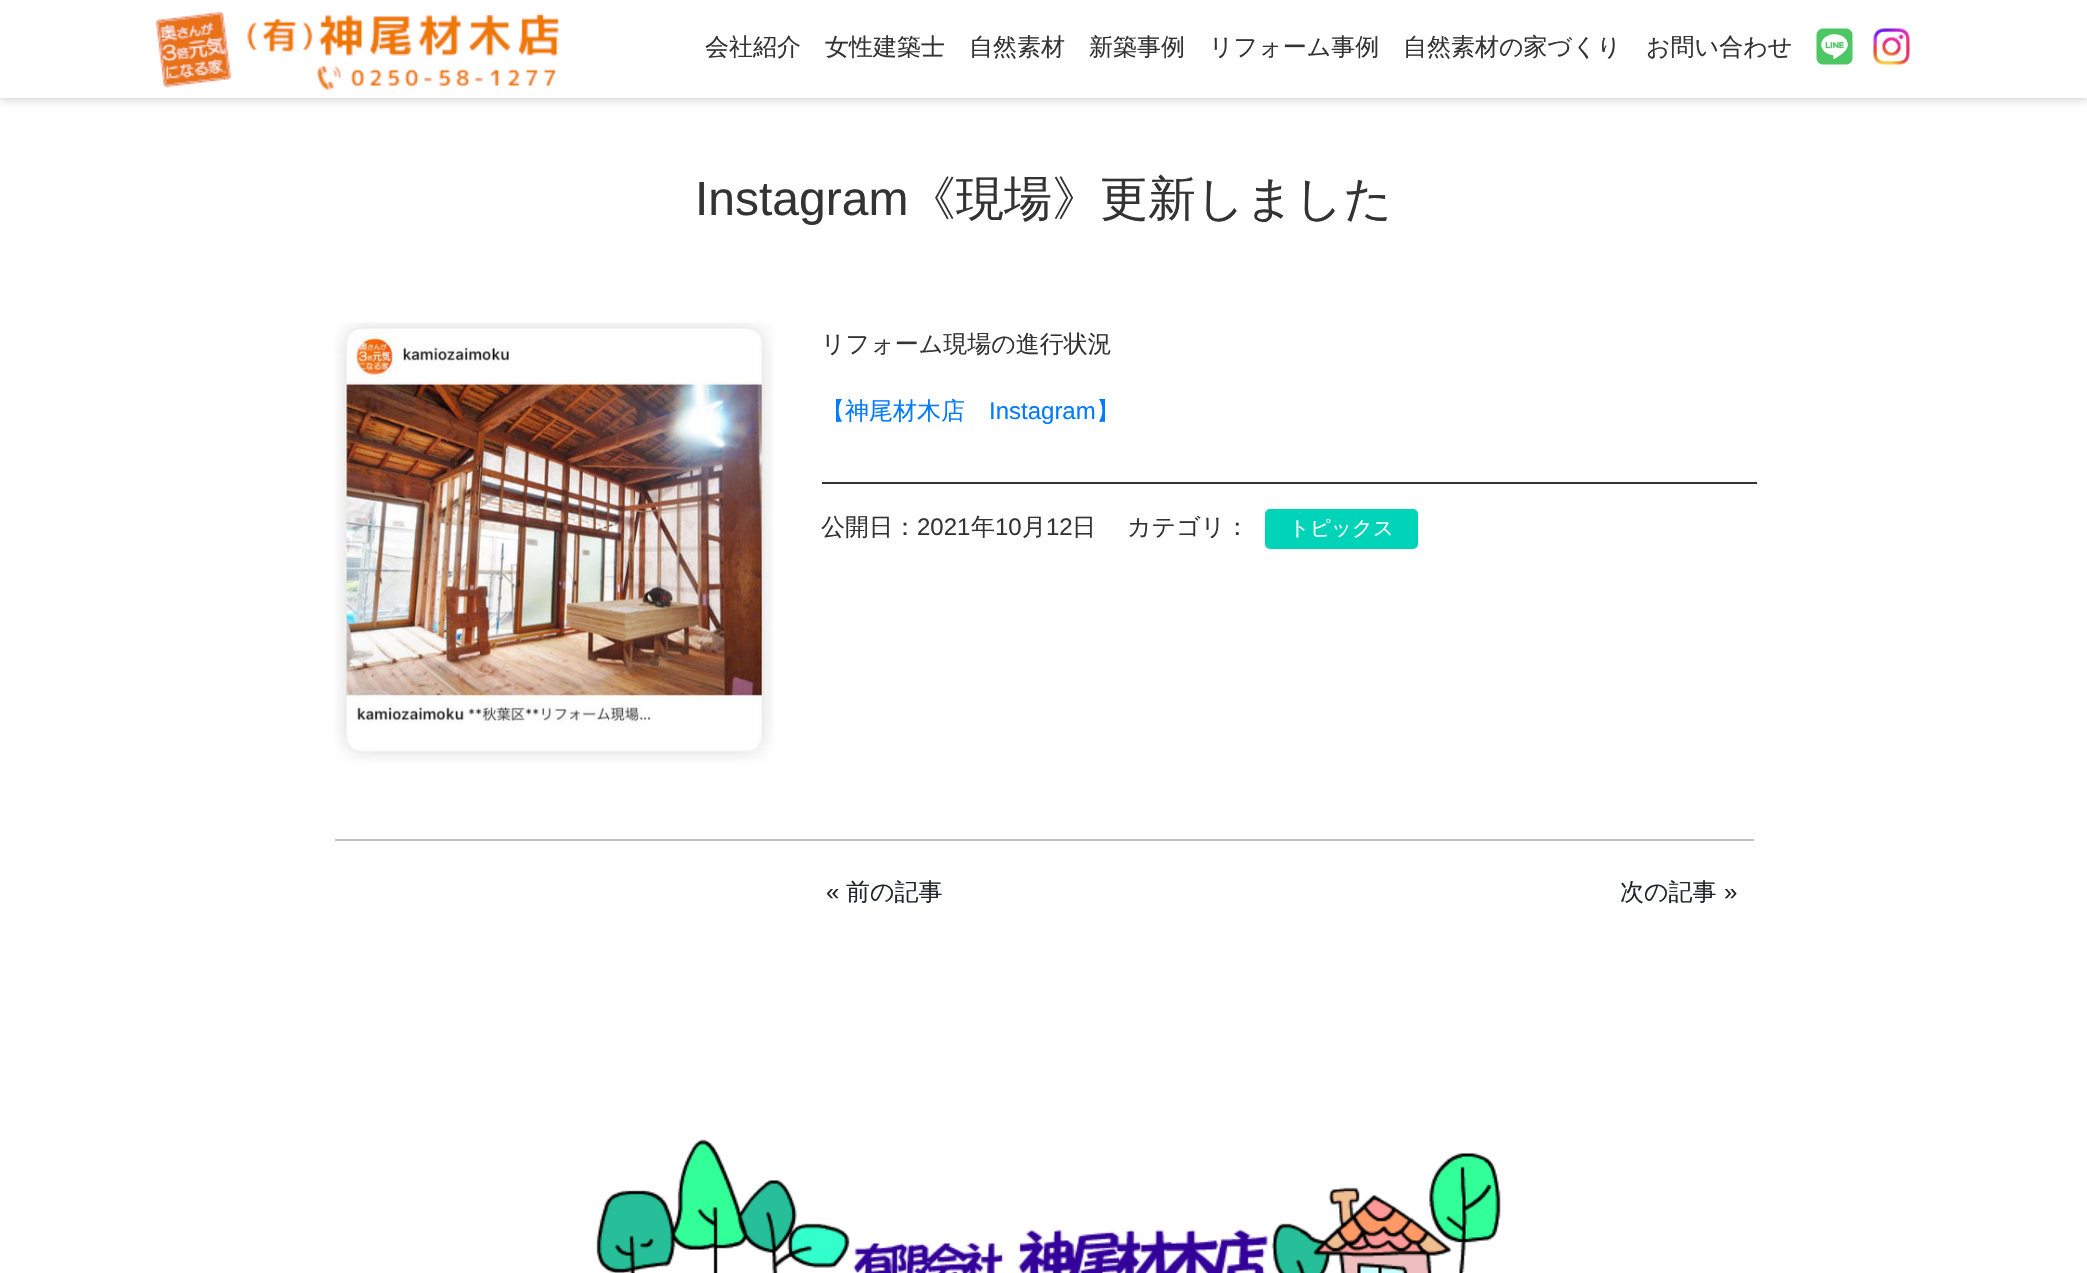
void draw(SkCanvas* canvas) {
    SkPaint paint;
    paint.setAntiAlias(true);
    auto face = [&](const char* family, int weight, float size, bool italic = false) {
        SkFontStyle style(weight, SkFontStyle::kNormal_Width,
            italic ? SkFontStyle::kItalic_Slant : SkFontStyle::kUpright_Slant);
        SkFont result(fontMgr->matchFamilyStyle(family, style), size);
        result.setSubpixel(true);
        return result;
    };
    auto write = [&](const char* s, float x, float y, const SkFont& font, SkColor color) {
        SkPaint ink(SkColor4f::FromColor(color));
        ink.setAntiAlias(true);
        canvas->drawString(s, x, y, font, ink);
    };
    auto block = [&](float x, float y, float w, float h, SkColor color) {
        SkPaint ink(SkColor4f::FromColor(color));
        ink.setAntiAlias(true);
        canvas->drawRect(SkRect::MakeXYWH(x, y, w, h), ink);
    };
    auto card = [&](float x, float y, float w, float h, float radius, SkColor color) {
        SkPaint ink(SkColor4f::FromColor(color));
        ink.setAntiAlias(true);
        canvas->drawRoundRect(SkRect::MakeXYWH(x, y, w, h), radius, radius, ink);
    };
    auto paste = [&](const char* path, float x, float y, float w, float h) {
        auto image = SkImages::DeferredFromEncodedData(SkData::MakeFromFileName(path));
        canvas->drawImageRect(image, SkRect::MakeXYWH(x, y, w, h), SkSamplingOptions());
    };
    canvas->clear(SK_ColorWHITE);
    paint.setColor(SkColorSetARGB(64, 0, 0, 0));
    paint.setMaskFilter(SkMaskFilter::MakeBlur(kNormal_SkBlurStyle, 5));
    canvas->drawRect(SkRect::MakeXYWH(0, 0, 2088, 98), paint);
    paint.setMaskFilter(nullptr);
    block(0, 0, 2087, 98, SK_ColorWHITE);
    paste("pic1.png", 155, 11, 404, 80);
    auto kFont1 = face("WenQuanYi Zen Hei", 500, 24);
    write("会社紹介", 705, 55, kFont1, SkColorSetRGB(51, 51, 51));
    write("女性建築士", 825, 55, kFont1, SkColorSetRGB(51, 51, 51));
    write("自然素材", 969, 55, kFont1, SkColorSetRGB(51, 51, 51));
    write("新築事例", 1089, 55, kFont1, SkColorSetRGB(51, 51, 51));
    write("リフォーム事例", 1209, 55, kFont1, SkColorSetRGB(51, 51, 51));
    write("自然素材の家づくり", 1403, 55, kFont1, SkColorSetRGB(51, 51, 51));
    write("お問い合わせ", 1646, 55, kFont1, SkColorSetRGB(51, 51, 51));
    paste("pic2.png", 1816, 28, 37, 37);
    paste("pic3.png", 1873, 28, 37, 37);
    auto kFont2 = face("Liberation Sans", 400, 48);
    write("Instagram", 695, 215, kFont2, SkColorSetRGB(51, 51, 51));
    auto kFont3 = face("WenQuanYi Zen Hei", 500, 48);
    write("《現場》更新しました", 908, 215, kFont3, SkColorSetRGB(51, 51, 51));
    paste("pic4.png", 335, 322, 439, 441);
    write("リフォーム現場の進行状況", 821, 352, kFont1, SkColorSetRGB(51, 51, 51));
    write("【神尾材木店", 821, 419, kFont1, SkColorSetRGB(0, 123, 255));
    auto kFont4 = face("Liberation Sans", 400, 24);
    write("Instagram", 989, 419, kFont4, SkColorSetRGB(0, 123, 255));
    write("】", 1096, 419, kFont1, SkColorSetRGB(0, 123, 255));
    block(822, 482, 935, 2, SkColorSetRGB(51, 51, 51));
    write("公開日：", 821, 535, kFont1, SkColorSetRGB(51, 51, 51));
    write("2021", 917, 535, kFont4, SkColorSetRGB(51, 51, 51));
    write("年", 971, 535, kFont1, SkColorSetRGB(51, 51, 51));
    write("10", 995, 535, kFont4, SkColorSetRGB(51, 51, 51));
    write("月", 1022, 535, kFont1, SkColorSetRGB(51, 51, 51));
    write("12", 1046, 535, kFont4, SkColorSetRGB(51, 51, 51));
    write("日", 1072, 535, kFont1, SkColorSetRGB(51, 51, 51));
    write("カテゴリ：", 1127, 535, kFont1, SkColorSetRGB(51, 51, 51));
    card(1265, 509, 153, 40, 5, SkColorSetRGB(0, 212, 184));
    auto kFont5 = face("WenQuanYi Zen Hei", 500, 20.5f);
    write("トピックス", 1289, 535, kFont5, SK_ColorWHITE);
    block(335, 839, 1419, 2, SkColorSetRGB(195, 195, 195));
    write("«", 826, 900, kFont4, SkColorSetRGB(33, 37, 41));
    write("前の記事", 846, 900, kFont1, SkColorSetRGB(33, 37, 41));
    write("次の記事", 1620, 900, kFont1, SkColorSetRGB(33, 37, 41));
    write("»", 1724, 900, kFont4, SkColorSetRGB(33, 37, 41));
    paste("pic5.png", 596, 1139, 905, 134);
}
